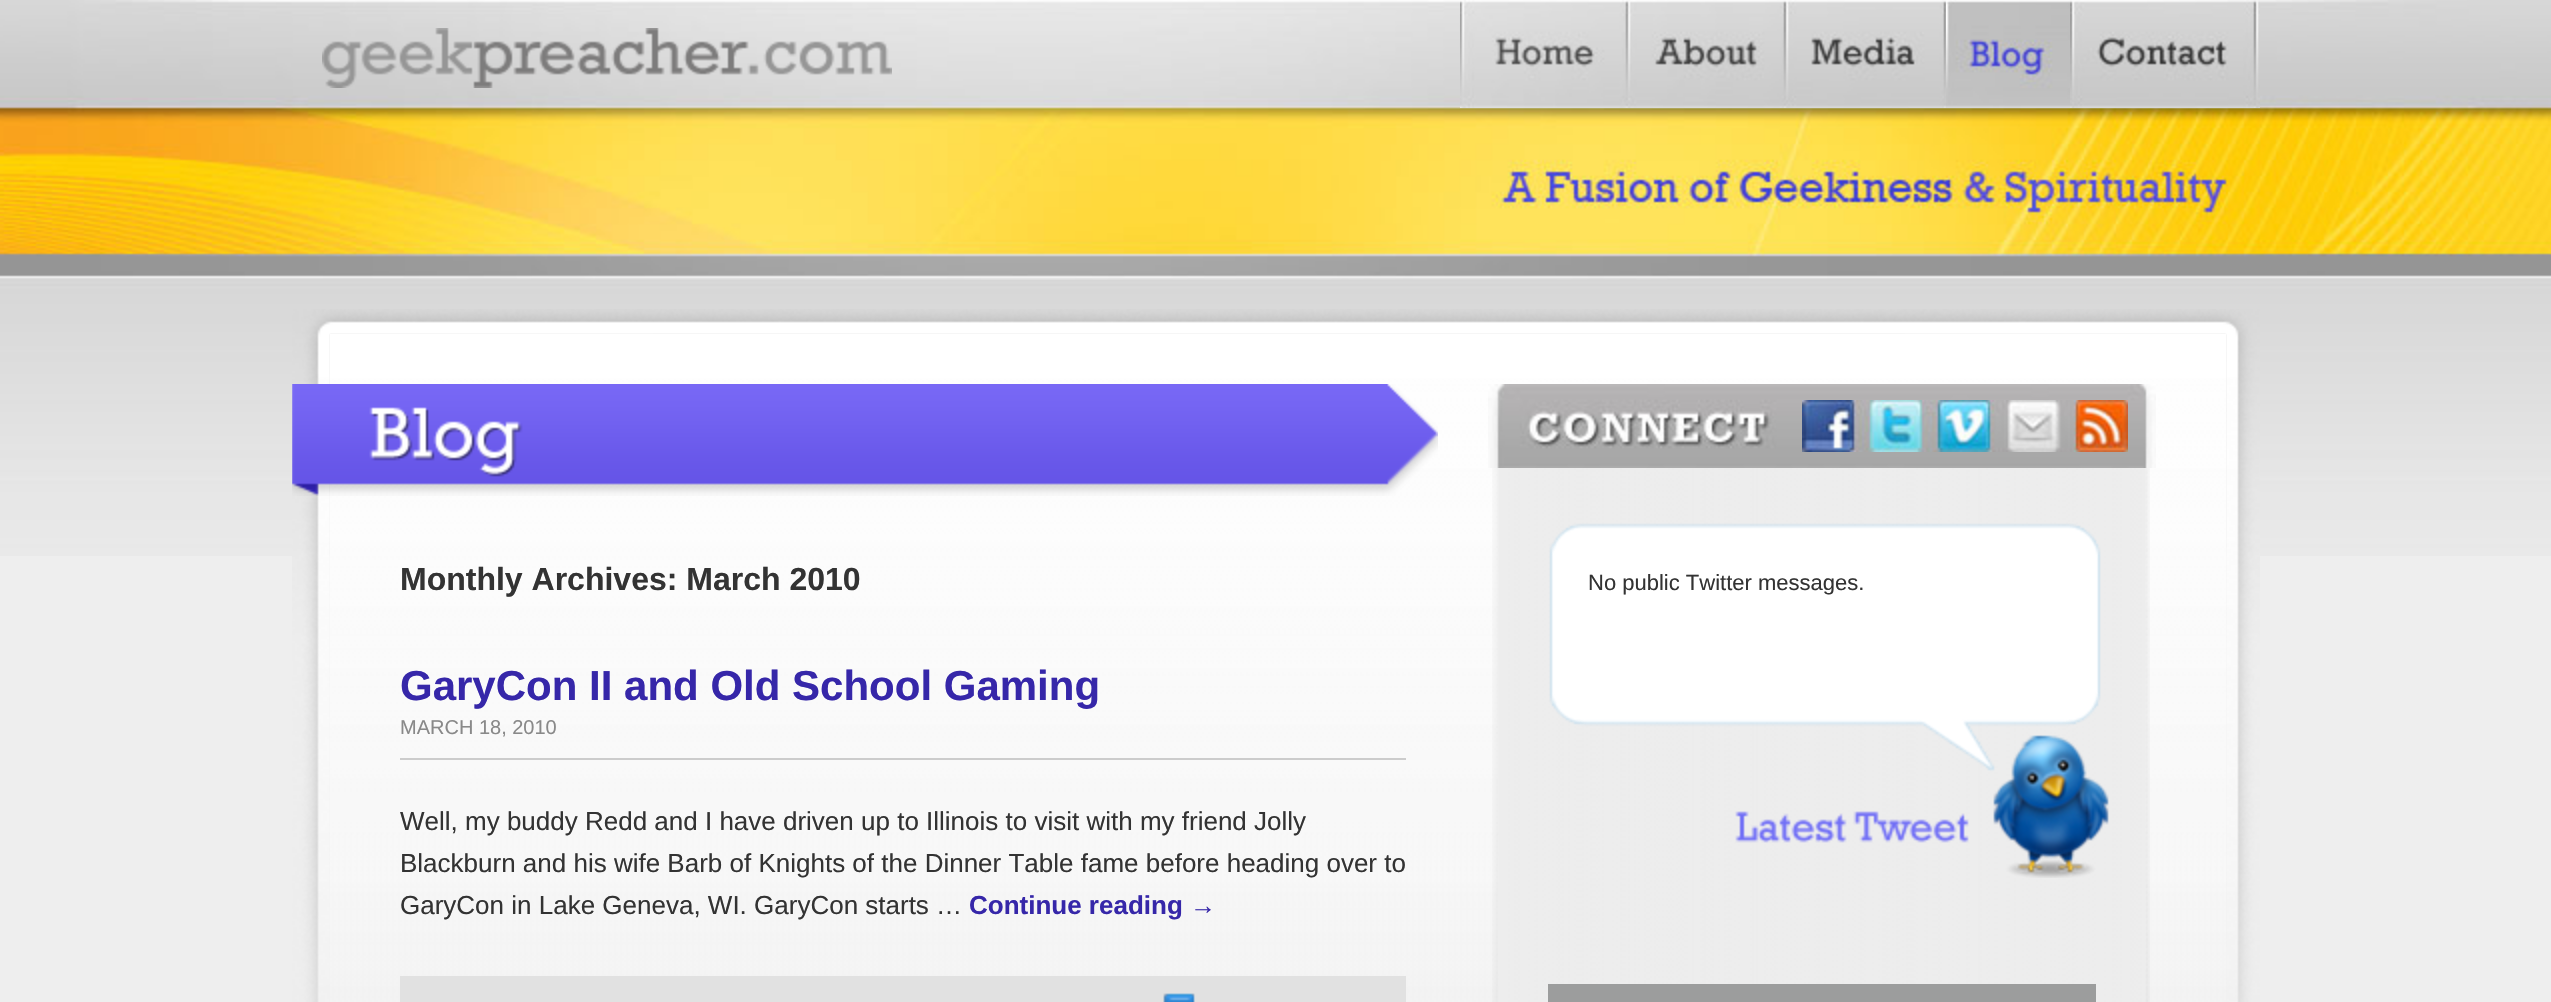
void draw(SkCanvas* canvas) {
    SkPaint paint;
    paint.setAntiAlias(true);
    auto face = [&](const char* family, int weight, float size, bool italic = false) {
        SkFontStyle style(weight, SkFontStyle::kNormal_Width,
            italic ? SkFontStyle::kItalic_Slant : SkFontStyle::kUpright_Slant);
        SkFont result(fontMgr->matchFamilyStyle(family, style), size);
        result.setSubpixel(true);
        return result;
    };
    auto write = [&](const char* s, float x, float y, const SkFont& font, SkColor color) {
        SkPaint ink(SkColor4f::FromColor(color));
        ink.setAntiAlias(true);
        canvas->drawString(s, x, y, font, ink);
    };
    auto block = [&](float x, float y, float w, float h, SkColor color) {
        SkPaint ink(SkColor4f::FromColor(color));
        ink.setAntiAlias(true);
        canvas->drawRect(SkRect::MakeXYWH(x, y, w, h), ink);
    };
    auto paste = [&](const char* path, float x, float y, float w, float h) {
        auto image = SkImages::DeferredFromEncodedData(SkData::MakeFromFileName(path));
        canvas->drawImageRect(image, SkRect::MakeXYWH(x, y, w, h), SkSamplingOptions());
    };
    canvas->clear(SkColorSetRGB(238, 238, 238));
    paste("pic1.png", 0, 280, 2551, 276);
    paste("pic2.png", 0, 0, 2551, 280);
    paste("pic3.png", 322, 28, 570, 60);
    paste("pic4.png", 1460, 0, 800, 108);
    paste("pic5.png", 1946, 1, 124, 107);
    paste("pic6.png", 292, 309, 1968, 693);
    paste("pic7.png", 330, 334, 1896, 668);
    paste("pic8.png", 292, 384, 1146, 112);
    auto kFont1 = face("Liberation Sans", 700, 32);
    write("Monthly Archives: March 2010", 400, 590, kFont1, SkColorSetRGB(51, 51, 51));
    auto kFont2 = face("Liberation Sans", 700, 42);
    write("GaryCon II and Old School Gaming", 400, 700, kFont2, SkColorSetRGB(54, 39, 169));
    block(400, 758, 1006, 2, SkColorSetRGB(204, 204, 204));
    auto kFont3 = face("Liberation Sans", 400, 20);
    write("MARCH 18, 2010", 400, 734, kFont3, SkColorSetRGB(137, 137, 137));
    auto kFont4 = face("Liberation Sans", 400, 26);
    write("Well, my buddy Redd and I have driven up to Illinois to visit with my friend Jolly", 400, 830, kFont4, SkColorSetRGB(51, 51, 51));
    write("Blackburn and his wife Barb of Knights of the Dinner Table fame before heading over to", 400, 872, kFont4, SkColorSetRGB(51, 51, 51));
    write("GaryCon in Lake Geneva, WI. GaryCon starts …", 400, 914, kFont4, SkColorSetRGB(51, 51, 51));
    auto kFont5 = face("Liberation Sans", 700, 26);
    write("Continue reading →", 969, 914, kFont5, SkColorSetRGB(54, 39, 169));
    block(400, 976, 1006, 26, SkColorSetRGB(225, 225, 225));
    paste("pic9.png", 1163, 993, 32, 9);
    paste("pic10.png", 1492, 468, 658, 534);
    paste("pic11.png", 1488, 384, 668, 84);
    paste("pic12.png", 1802, 400, 326, 52);
    paste("pic13.png", 1549, 523, 560, 355);
    auto kFont6 = face("Liberation Sans", 400, 22);
    write("No public Twitter messages.", 1588, 590, kFont6, SkColorSetRGB(51, 51, 51));
    block(1548, 984, 548, 18, SkColorSetRGB(156, 157, 157));
}
